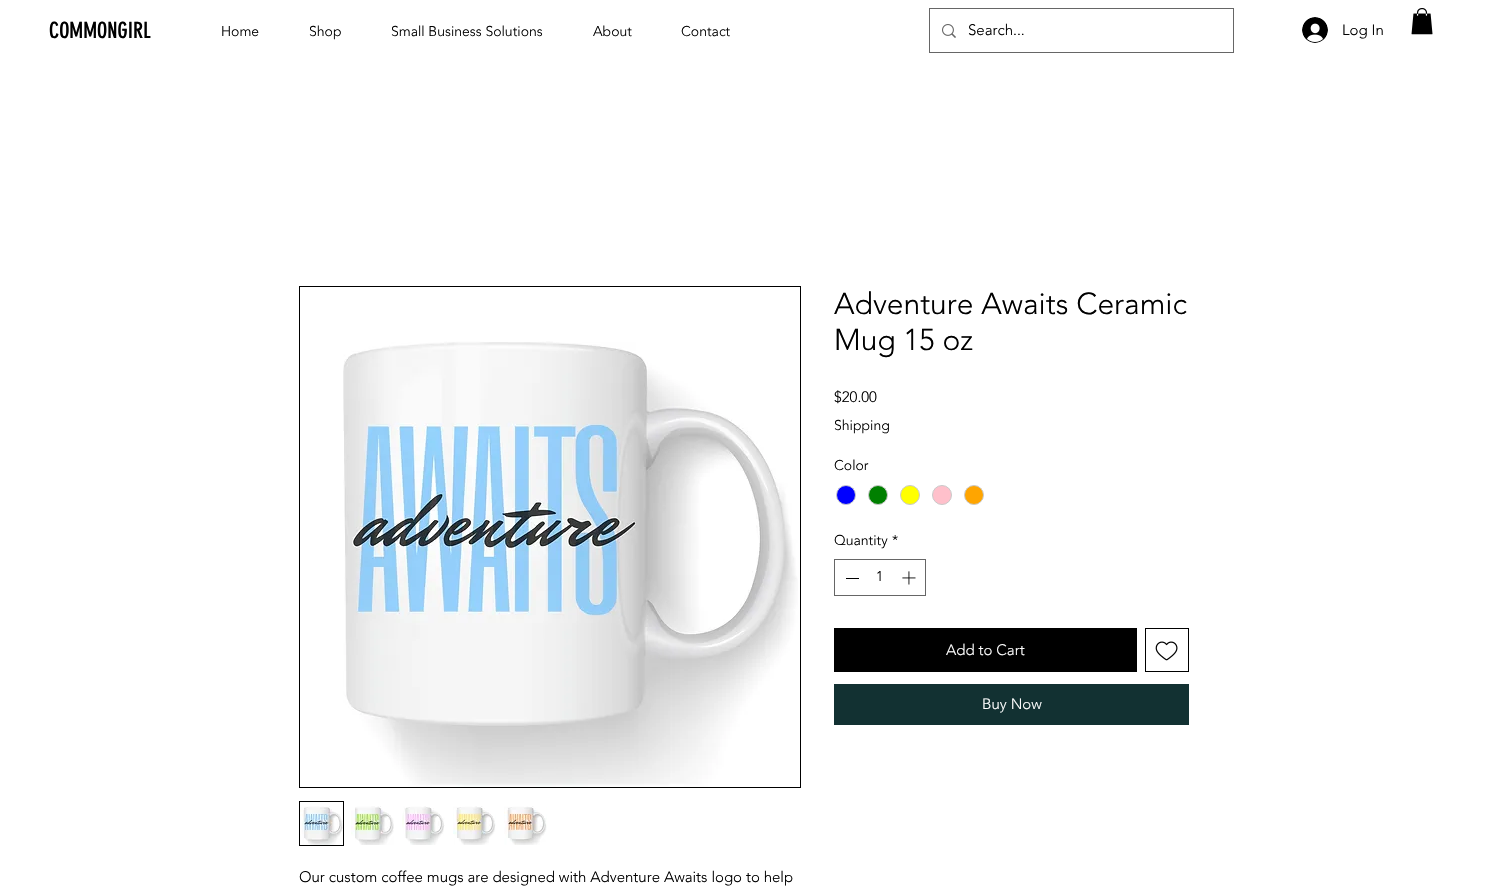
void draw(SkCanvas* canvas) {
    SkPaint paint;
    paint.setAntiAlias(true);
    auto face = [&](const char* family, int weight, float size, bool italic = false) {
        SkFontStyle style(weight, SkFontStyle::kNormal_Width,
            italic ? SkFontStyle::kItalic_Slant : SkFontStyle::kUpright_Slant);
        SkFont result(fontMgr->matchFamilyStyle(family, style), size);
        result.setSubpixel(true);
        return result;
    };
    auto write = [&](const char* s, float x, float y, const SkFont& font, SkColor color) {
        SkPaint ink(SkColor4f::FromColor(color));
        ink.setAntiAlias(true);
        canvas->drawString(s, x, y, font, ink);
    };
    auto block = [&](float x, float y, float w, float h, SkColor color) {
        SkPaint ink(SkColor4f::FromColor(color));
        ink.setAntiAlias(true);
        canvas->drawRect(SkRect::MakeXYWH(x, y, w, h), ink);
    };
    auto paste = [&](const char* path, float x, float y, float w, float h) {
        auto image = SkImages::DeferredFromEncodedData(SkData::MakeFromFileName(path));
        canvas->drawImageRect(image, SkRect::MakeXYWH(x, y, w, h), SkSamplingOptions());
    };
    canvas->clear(SK_ColorWHITE);
    auto kFont1 = face("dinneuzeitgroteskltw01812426", 400, 22);
    write("COMMONGIRL", 49, 38, kFont1, SK_ColorBLACK);
    auto kFont2 = face("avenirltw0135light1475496", 300, 14);
    write("Home", 221, 36, kFont2, SK_ColorBLACK);
    write("Shop", 309, 36, kFont2, SK_ColorBLACK);
    write("Small Business Solutions", 391, 36, kFont2, SK_ColorBLACK);
    write("About", 593, 36, kFont2, SK_ColorBLACK);
    write("Contact", 681, 36, kFont2, SK_ColorBLACK);
    paint.setStyle(SkPaint::kStroke_Style);
    paint.setStrokeWidth(1);
    paint.setColor(SkColorSetRGB(102, 102, 102));
    canvas->drawRect(SkRect::MakeXYWH(929.5f, 8.5f, 304, 44), paint);
    paste("pic1.png", 942, 24, 14, 14);
    auto kFont3 = face("avenirltw0135light1475496", 300, 15);
    write("Search...", 968, 35, kFont3, SK_ColorBLACK);
    paste("pic2.png", 1302, 17, 26, 26);
    write("Log In", 1342, 35, kFont3, SK_ColorBLACK);
    paste("pic3.png", 1411, 8, 22, 27);
    auto kFont4 = face("avenirltw0135light1475496", 300, 30);
    write("Adventure Awaits Ceramic", 834, 314, kFont4, SK_ColorBLACK);
    write("Mug 15 oz", 834, 350, kFont4, SK_ColorBLACK);
    write("$20.00", 834, 402, kFont3, SK_ColorBLACK);
    write("Shipping", 834, 430, kFont2, SK_ColorBLACK);
    write("Color", 834, 470, kFont2, SK_ColorBLACK);
    paint.setStyle(SkPaint::kFill_Style);
    paint.setColor(SkColorSetRGB(0, 0, 255));
    canvas->drawCircle(846, 495, 9.5f, paint);
    paint.setStyle(SkPaint::kStroke_Style);
    paint.setColor(SkColorSetRGB(201, 201, 201));
    canvas->drawCircle(846, 495, 9.5f, paint);
    paint.setStyle(SkPaint::kFill_Style);
    paint.setColor(SkColorSetRGB(0, 128, 0));
    canvas->drawCircle(878, 495, 9.5f, paint);
    paint.setStyle(SkPaint::kStroke_Style);
    paint.setColor(SkColorSetRGB(201, 201, 201));
    canvas->drawCircle(878, 495, 9.5f, paint);
    paint.setStyle(SkPaint::kFill_Style);
    paint.setColor(SkColorSetRGB(255, 255, 0));
    canvas->drawCircle(910, 495, 9.5f, paint);
    paint.setStyle(SkPaint::kStroke_Style);
    paint.setColor(SkColorSetRGB(201, 201, 201));
    canvas->drawCircle(910, 495, 9.5f, paint);
    paint.setStyle(SkPaint::kFill_Style);
    paint.setColor(SkColorSetRGB(255, 192, 203));
    canvas->drawCircle(942, 495, 9.5f, paint);
    paint.setStyle(SkPaint::kStroke_Style);
    paint.setColor(SkColorSetRGB(201, 201, 201));
    canvas->drawCircle(942, 495, 9.5f, paint);
    paint.setStyle(SkPaint::kFill_Style);
    paint.setColor(SkColorSetRGB(255, 165, 0));
    canvas->drawCircle(974, 495, 9.5f, paint);
    paint.setStyle(SkPaint::kStroke_Style);
    paint.setColor(SkColorSetRGB(201, 201, 201));
    canvas->drawCircle(974, 495, 9.5f, paint);
    write("Quantity", 834, 545, kFont2, SK_ColorBLACK);
    write("*", 892, 545, kFont2, SK_ColorBLACK);
    paint.setColor(SkColorSetRGB(102, 102, 102));
    canvas->drawRect(SkRect::MakeXYWH(834.5f, 559.5f, 91, 36), paint);
    block(846, 578, 13, 1, SK_ColorBLACK);
    write("1", 876, 581, kFont2, SK_ColorBLACK);
    paste("pic4.png", 902, 571, 14, 14);
    block(834, 628, 303, 44, SK_ColorBLACK);
    write("Add to Cart", 946, 655, kFont3, SK_ColorWHITE);
    paint.setColor(SK_ColorBLACK);
    canvas->drawRect(SkRect::MakeXYWH(1145.5f, 628.5f, 43, 43), paint);
    paste("pic5.png", 1155, 641, 23, 20);
    block(834, 684, 355, 41, SkColorSetRGB(18, 49, 50));
    write("Buy Now", 982, 709, kFont3, SK_ColorWHITE);
    canvas->drawRect(SkRect::MakeXYWH(299.5f, 286.5f, 501, 501), paint);
    paste("pic6.png", 343, 341, 455, 446);
    canvas->drawRect(SkRect::MakeXYWH(299.5f, 801.5f, 44, 44), paint);
    paste("pic7.png", 300, 806, 43, 39);
    paste("pic8.png", 351, 806, 43, 39);
    paste("pic9.png", 402, 806, 43, 39);
    paste("pic10.png", 453, 806, 43, 39);
    paste("pic11.png", 504, 806, 43, 39);
    write("Our custom coffee mugs are designed with Adventure Awaits logo to help", 299, 882, kFont3, SK_ColorBLACK);
}
